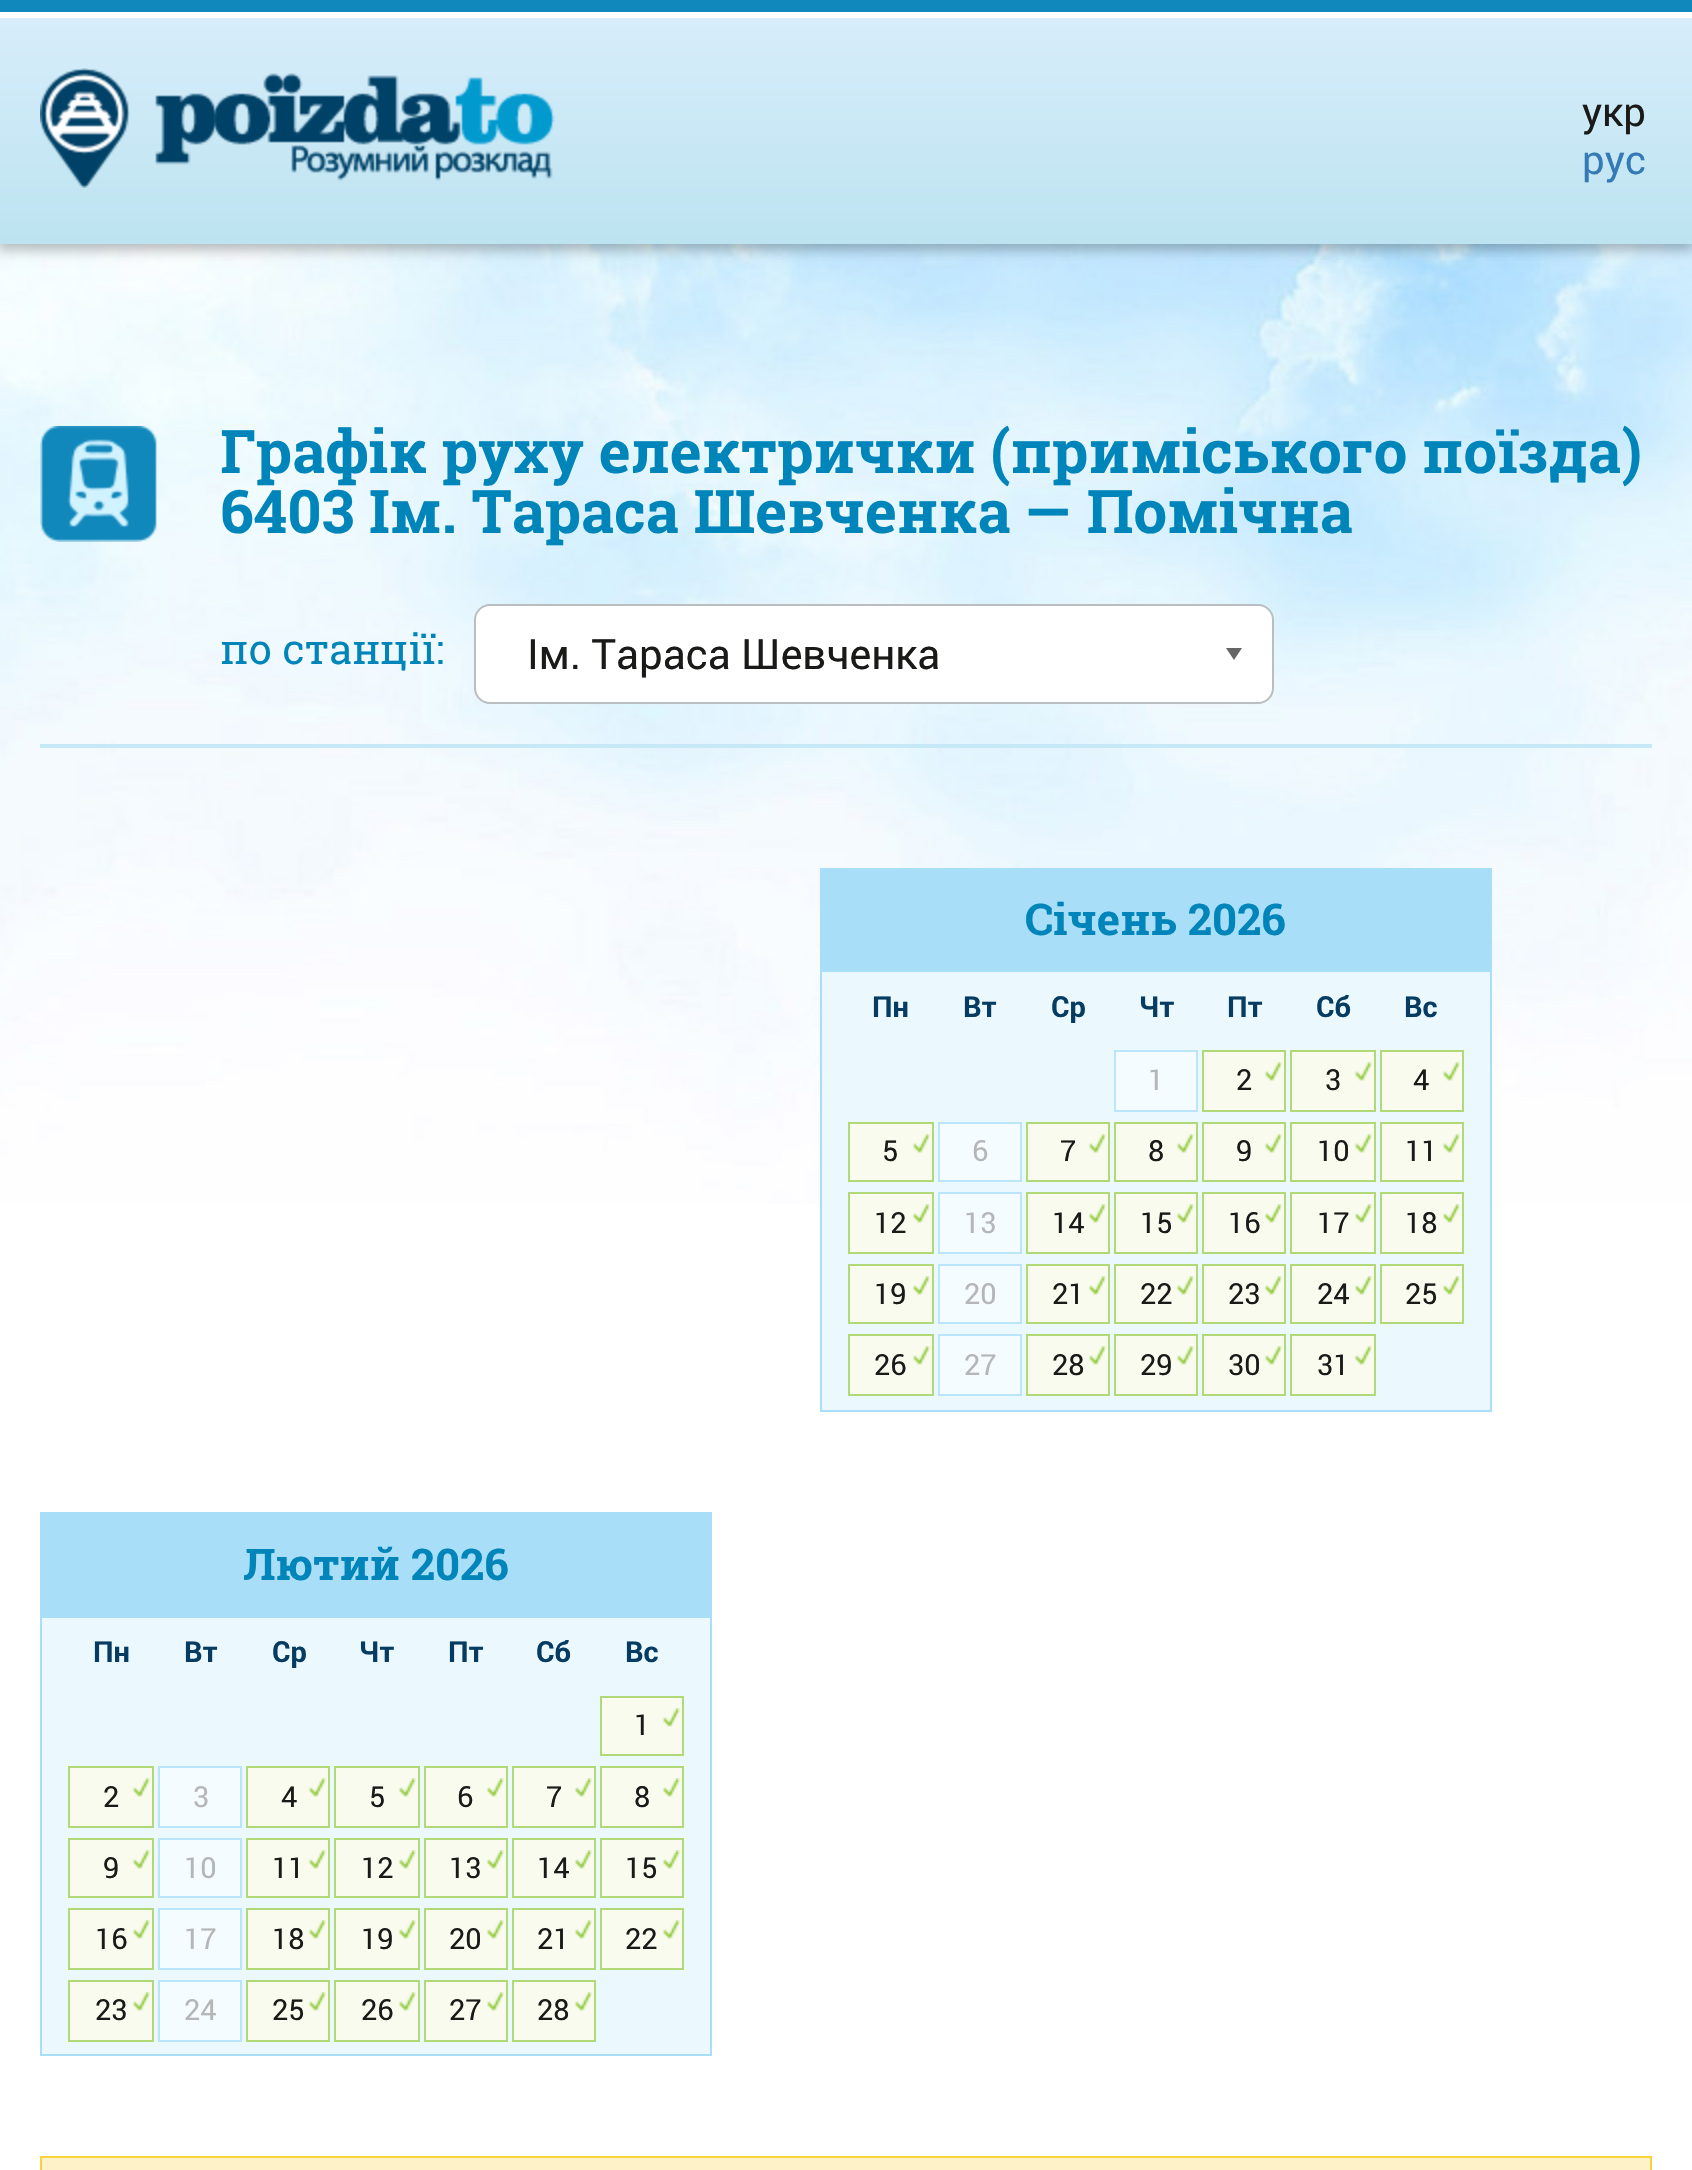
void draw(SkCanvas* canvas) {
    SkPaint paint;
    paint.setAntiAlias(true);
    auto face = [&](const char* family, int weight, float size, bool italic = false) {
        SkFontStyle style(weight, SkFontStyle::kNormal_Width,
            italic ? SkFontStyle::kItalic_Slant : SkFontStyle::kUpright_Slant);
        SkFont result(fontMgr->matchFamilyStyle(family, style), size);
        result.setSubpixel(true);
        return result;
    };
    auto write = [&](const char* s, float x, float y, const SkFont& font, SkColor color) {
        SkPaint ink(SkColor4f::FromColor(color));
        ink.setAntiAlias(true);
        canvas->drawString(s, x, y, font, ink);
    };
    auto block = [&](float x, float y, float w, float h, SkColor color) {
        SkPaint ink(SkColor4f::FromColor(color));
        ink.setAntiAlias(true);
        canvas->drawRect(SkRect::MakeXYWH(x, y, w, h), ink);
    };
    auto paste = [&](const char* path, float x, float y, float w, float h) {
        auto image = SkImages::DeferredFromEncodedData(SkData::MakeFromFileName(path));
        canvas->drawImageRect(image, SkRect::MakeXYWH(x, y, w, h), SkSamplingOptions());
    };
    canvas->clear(SK_ColorWHITE);
    block(0, 0, 1692, 12, SkColorSetRGB(17, 136, 187));
    paste("pic2.png", 0, 244, 1692, 960);
    canvas->save();
    canvas->clipRect(SkRect::MakeXYWH(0, 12, 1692, 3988));
    paint.setColor(SkColorSetARGB(69, 0, 0, 0));
    paint.setMaskFilter(SkMaskFilter::MakeBlur(kNormal_SkBlurStyle, 6));
    canvas->drawRect(SkRect::MakeXYWH(-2, 14, 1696, 236), paint);
    paint.setMaskFilter(nullptr);
    canvas->restore();
    {
        const SkColor colors[] = {SkColorSetRGB(189, 227, 240), SkColorSetRGB(215, 237, 251)};
        const float stops[] = {0, 1};
        const SkPoint ends[] = {{846, 244}, {846, 18}};
        paint.setShader(SkGradientShader::MakeLinear(ends, colors, stops, 2, SkTileMode::kClamp));
        paint.setAlpha(255);
    }
    canvas->drawRect(SkRect::MakeXYWH(0, 18, 1692, 226), paint);
    block(0, 12, 1692, 6, SK_ColorWHITE);
    paste("pic1.png", 40, 68, 515, 120);
    auto kFont1 = face("Roboto", 400, 40);
    write("укр", 1582, 126, kFont1, SkColorSetRGB(26, 26, 24));
    write("рус", 1582, 174, kFont1, SkColorSetRGB(51, 122, 183));
    paste("pic3.png", 40, 426, 117, 116);
    auto kFont2 = face("Roboto Slab", 700, 60);
    write("Графік руху електрички (приміського поїзда)", 220, 473, kFont2, SkColorSetRGB(0, 133, 186));
    write("6403 Ім. Тараса Шевченка — Помічна", 220, 533, kFont2, SkColorSetRGB(0, 133, 186));
    auto kFont3 = face("Roboto Slab", 400, 41.75f);
    write("по станції:", 220, 664, kFont3, SkColorSetRGB(0, 133, 186));
    paint.setShader(nullptr);
    paint.setColor(SK_ColorWHITE);
    canvas->drawRoundRect(SkRect::MakeXYWH(475, 605, 798, 98), 15, 15, paint);
    paint.setStyle(SkPaint::kStroke_Style);
    paint.setStrokeWidth(2);
    paint.setColor(SkColorSetRGB(186, 190, 192));
    canvas->drawRoundRect(SkRect::MakeXYWH(475, 605, 798, 98), 15, 15, paint);
    auto kFont4 = face("Roboto", 400, 41.75f);
    write("Ім. Тараса Шевченка", 527, 669, kFont4, SkColorSetRGB(26, 26, 24));
    paint.setStyle(SkPaint::kFill_Style);
    paint.setColor(SkColorSetRGB(101, 101, 101));
    canvas->drawPath(SkPathBuilder().moveTo(1226, 648).lineTo(1242, 648).lineTo(1234, 660).close().detach(), paint);
    block(40, 744, 1612, 4, SkColorSetRGB(198, 232, 247));
    block(822, 972, 668, 438, SkColorSetRGB(235, 249, 255));
    paint.setStyle(SkPaint::kStroke_Style);
    paint.setColor(SkColorSetRGB(168, 222, 247));
    canvas->drawRect(SkRect::MakeXYWH(821, 869, 670, 542), paint);
    block(822, 870, 668, 102, SkColorSetRGB(168, 222, 247));
    auto kFont5 = face("Roboto Slab", 700, 43.75f);
    write("Січень 2026", 1025, 935, kFont5, SkColorSetRGB(0, 133, 186));
    auto kFont6 = face("Roboto", 700, 29);
    write("Пн", 872, 1017, kFont6, SkColorSetRGB(6, 60, 98));
    write("Вт", 963, 1017, kFont6, SkColorSetRGB(6, 60, 98));
    write("Ср", 1051, 1017, kFont6, SkColorSetRGB(6, 60, 98));
    write("Чт", 1139, 1017, kFont6, SkColorSetRGB(6, 60, 98));
    write("Пт", 1227, 1017, kFont6, SkColorSetRGB(6, 60, 98));
    write("Сб", 1316, 1017, kFont6, SkColorSetRGB(6, 60, 98));
    write("Вс", 1404, 1017, kFont6, SkColorSetRGB(6, 60, 98));
    paint.setStyle(SkPaint::kFill_Style);
    paint.setColor(SkColorSetRGB(245, 252, 255));
    canvas->drawRect(SkRect::MakeXYWH(1115, 1051, 82, 60), paint);
    paint.setStyle(SkPaint::kStroke_Style);
    paint.setColor(SkColorSetRGB(186, 229, 250));
    canvas->drawRect(SkRect::MakeXYWH(1115, 1051, 82, 60), paint);
    auto kFont7 = face("Roboto", 400, 29);
    write("1", 1148, 1090, kFont7, SkColorSetRGB(180, 182, 183));
    block(1204, 1052, 80, 58, SkColorSetRGB(248, 251, 238));
    paste("pic4.png", 1264, 1062, 18, 19);
    paint.setColor(SkColorSetRGB(177, 217, 119));
    canvas->drawRect(SkRect::MakeXYWH(1203, 1051, 82, 60), paint);
    write("2", 1236, 1090, kFont7, SkColorSetRGB(26, 26, 24));
    block(1292, 1052, 82, 58, SkColorSetRGB(248, 251, 238));
    paste("pic4.png", 1354, 1062, 18, 19);
    canvas->drawRect(SkRect::MakeXYWH(1291, 1051, 84, 60), paint);
    write("3", 1325, 1090, kFont7, SkColorSetRGB(26, 26, 24));
    block(1382, 1052, 80, 58, SkColorSetRGB(248, 251, 238));
    paste("pic4.png", 1442, 1062, 18, 19);
    canvas->drawRect(SkRect::MakeXYWH(1381, 1051, 82, 60), paint);
    write("4", 1413, 1090, kFont7, SkColorSetRGB(26, 26, 24));
    block(850, 1124, 82, 56, SkColorSetRGB(248, 251, 238));
    paste("pic4.png", 912, 1134, 18, 19);
    canvas->drawRect(SkRect::MakeXYWH(849, 1123, 84, 58), paint);
    write("5", 882, 1161, kFont7, SkColorSetRGB(26, 26, 24));
    paint.setStyle(SkPaint::kFill_Style);
    paint.setColor(SkColorSetRGB(245, 252, 255));
    canvas->drawRect(SkRect::MakeXYWH(939, 1123, 82, 58), paint);
    paint.setStyle(SkPaint::kStroke_Style);
    paint.setColor(SkColorSetRGB(186, 229, 250));
    canvas->drawRect(SkRect::MakeXYWH(939, 1123, 82, 58), paint);
    write("6", 972, 1161, kFont7, SkColorSetRGB(180, 182, 183));
    block(1028, 1124, 80, 56, SkColorSetRGB(248, 251, 238));
    paste("pic4.png", 1088, 1134, 18, 19);
    paint.setColor(SkColorSetRGB(177, 217, 119));
    canvas->drawRect(SkRect::MakeXYWH(1027, 1123, 82, 58), paint);
    write("7", 1060, 1161, kFont7, SkColorSetRGB(26, 26, 24));
    block(1116, 1124, 80, 56, SkColorSetRGB(248, 251, 238));
    paste("pic4.png", 1176, 1134, 18, 19);
    canvas->drawRect(SkRect::MakeXYWH(1115, 1123, 82, 58), paint);
    write("8", 1148, 1161, kFont7, SkColorSetRGB(26, 26, 24));
    block(1204, 1124, 80, 56, SkColorSetRGB(248, 251, 238));
    paste("pic4.png", 1264, 1134, 18, 19);
    canvas->drawRect(SkRect::MakeXYWH(1203, 1123, 82, 58), paint);
    write("9", 1236, 1161, kFont7, SkColorSetRGB(26, 26, 24));
    block(1292, 1124, 82, 56, SkColorSetRGB(248, 251, 238));
    paste("pic4.png", 1354, 1134, 18, 19);
    canvas->drawRect(SkRect::MakeXYWH(1291, 1123, 84, 58), paint);
    write("10", 1317, 1161, kFont7, SkColorSetRGB(26, 26, 24));
    block(1382, 1124, 80, 56, SkColorSetRGB(248, 251, 238));
    paste("pic4.png", 1442, 1134, 18, 19);
    canvas->drawRect(SkRect::MakeXYWH(1381, 1123, 82, 58), paint);
    write("11", 1405, 1161, kFont7, SkColorSetRGB(26, 26, 24));
    block(850, 1194, 82, 58, SkColorSetRGB(248, 251, 238));
    paste("pic4.png", 912, 1204, 18, 19);
    canvas->drawRect(SkRect::MakeXYWH(849, 1193, 84, 60), paint);
    write("12", 874, 1233, kFont7, SkColorSetRGB(26, 26, 24));
    paint.setStyle(SkPaint::kFill_Style);
    paint.setColor(SkColorSetRGB(245, 252, 255));
    canvas->drawRect(SkRect::MakeXYWH(939, 1193, 82, 60), paint);
    paint.setStyle(SkPaint::kStroke_Style);
    paint.setColor(SkColorSetRGB(186, 229, 250));
    canvas->drawRect(SkRect::MakeXYWH(939, 1193, 82, 60), paint);
    write("13", 964, 1233, kFont7, SkColorSetRGB(180, 182, 183));
    block(1028, 1194, 80, 58, SkColorSetRGB(248, 251, 238));
    paste("pic4.png", 1088, 1204, 18, 19);
    paint.setColor(SkColorSetRGB(177, 217, 119));
    canvas->drawRect(SkRect::MakeXYWH(1027, 1193, 82, 60), paint);
    write("14", 1052, 1233, kFont7, SkColorSetRGB(26, 26, 24));
    block(1116, 1194, 80, 58, SkColorSetRGB(248, 251, 238));
    paste("pic4.png", 1176, 1204, 18, 19);
    canvas->drawRect(SkRect::MakeXYWH(1115, 1193, 82, 60), paint);
    write("15", 1140, 1233, kFont7, SkColorSetRGB(26, 26, 24));
    block(1204, 1194, 80, 58, SkColorSetRGB(248, 251, 238));
    paste("pic4.png", 1264, 1204, 18, 19);
    canvas->drawRect(SkRect::MakeXYWH(1203, 1193, 82, 60), paint);
    write("16", 1228, 1233, kFont7, SkColorSetRGB(26, 26, 24));
    block(1292, 1194, 82, 58, SkColorSetRGB(248, 251, 238));
    paste("pic4.png", 1354, 1204, 18, 19);
    canvas->drawRect(SkRect::MakeXYWH(1291, 1193, 84, 60), paint);
    write("17", 1317, 1233, kFont7, SkColorSetRGB(26, 26, 24));
    block(1382, 1194, 80, 58, SkColorSetRGB(248, 251, 238));
    paste("pic4.png", 1442, 1204, 18, 19);
    canvas->drawRect(SkRect::MakeXYWH(1381, 1193, 82, 60), paint);
    write("18", 1405, 1233, kFont7, SkColorSetRGB(26, 26, 24));
    block(850, 1266, 82, 56, SkColorSetRGB(248, 251, 238));
    paste("pic4.png", 912, 1276, 18, 19);
    canvas->drawRect(SkRect::MakeXYWH(849, 1265, 84, 58), paint);
    write("19", 874, 1304, kFont7, SkColorSetRGB(26, 26, 24));
    paint.setStyle(SkPaint::kFill_Style);
    paint.setColor(SkColorSetRGB(245, 252, 255));
    canvas->drawRect(SkRect::MakeXYWH(939, 1265, 82, 58), paint);
    paint.setStyle(SkPaint::kStroke_Style);
    paint.setColor(SkColorSetRGB(186, 229, 250));
    canvas->drawRect(SkRect::MakeXYWH(939, 1265, 82, 58), paint);
    write("20", 964, 1304, kFont7, SkColorSetRGB(180, 182, 183));
    block(1028, 1266, 80, 56, SkColorSetRGB(248, 251, 238));
    paste("pic4.png", 1088, 1276, 18, 19);
    paint.setColor(SkColorSetRGB(177, 217, 119));
    canvas->drawRect(SkRect::MakeXYWH(1027, 1265, 82, 58), paint);
    write("21", 1052, 1304, kFont7, SkColorSetRGB(26, 26, 24));
    block(1116, 1266, 80, 56, SkColorSetRGB(248, 251, 238));
    paste("pic4.png", 1176, 1276, 18, 19);
    canvas->drawRect(SkRect::MakeXYWH(1115, 1265, 82, 58), paint);
    write("22", 1140, 1304, kFont7, SkColorSetRGB(26, 26, 24));
    block(1204, 1266, 80, 56, SkColorSetRGB(248, 251, 238));
    paste("pic4.png", 1264, 1276, 18, 19);
    canvas->drawRect(SkRect::MakeXYWH(1203, 1265, 82, 58), paint);
    write("23", 1228, 1304, kFont7, SkColorSetRGB(26, 26, 24));
    block(1292, 1266, 82, 56, SkColorSetRGB(248, 251, 238));
    paste("pic4.png", 1354, 1276, 18, 19);
    canvas->drawRect(SkRect::MakeXYWH(1291, 1265, 84, 58), paint);
    write("24", 1317, 1304, kFont7, SkColorSetRGB(26, 26, 24));
    block(1382, 1266, 80, 56, SkColorSetRGB(248, 251, 238));
    paste("pic4.png", 1442, 1276, 18, 19);
    canvas->drawRect(SkRect::MakeXYWH(1381, 1265, 82, 58), paint);
    write("25", 1405, 1304, kFont7, SkColorSetRGB(26, 26, 24));
    block(850, 1336, 82, 58, SkColorSetRGB(248, 251, 238));
    paste("pic4.png", 912, 1346, 18, 19);
    canvas->drawRect(SkRect::MakeXYWH(849, 1335, 84, 60), paint);
    write("26", 874, 1375, kFont7, SkColorSetRGB(26, 26, 24));
    paint.setStyle(SkPaint::kFill_Style);
    paint.setColor(SkColorSetRGB(245, 252, 255));
    canvas->drawRect(SkRect::MakeXYWH(939, 1335, 82, 60), paint);
    paint.setStyle(SkPaint::kStroke_Style);
    paint.setColor(SkColorSetRGB(186, 229, 250));
    canvas->drawRect(SkRect::MakeXYWH(939, 1335, 82, 60), paint);
    write("27", 964, 1375, kFont7, SkColorSetRGB(180, 182, 183));
    block(1028, 1336, 80, 58, SkColorSetRGB(248, 251, 238));
    paste("pic4.png", 1088, 1346, 18, 19);
    paint.setColor(SkColorSetRGB(177, 217, 119));
    canvas->drawRect(SkRect::MakeXYWH(1027, 1335, 82, 60), paint);
    write("28", 1052, 1375, kFont7, SkColorSetRGB(26, 26, 24));
    block(1116, 1336, 80, 58, SkColorSetRGB(248, 251, 238));
    paste("pic4.png", 1176, 1346, 18, 19);
    canvas->drawRect(SkRect::MakeXYWH(1115, 1335, 82, 60), paint);
    write("29", 1140, 1375, kFont7, SkColorSetRGB(26, 26, 24));
    block(1204, 1336, 80, 58, SkColorSetRGB(248, 251, 238));
    paste("pic4.png", 1264, 1346, 18, 19);
    canvas->drawRect(SkRect::MakeXYWH(1203, 1335, 82, 60), paint);
    write("30", 1228, 1375, kFont7, SkColorSetRGB(26, 26, 24));
    block(1292, 1336, 82, 58, SkColorSetRGB(248, 251, 238));
    paste("pic4.png", 1354, 1346, 18, 19);
    canvas->drawRect(SkRect::MakeXYWH(1291, 1335, 84, 60), paint);
    write("31", 1317, 1375, kFont7, SkColorSetRGB(26, 26, 24));
    block(42, 1618, 668, 436, SkColorSetRGB(235, 249, 255));
    paint.setColor(SkColorSetRGB(168, 222, 247));
    canvas->drawRect(SkRect::MakeXYWH(41, 1513, 670, 542), paint);
    block(42, 1514, 668, 104, SkColorSetRGB(168, 222, 247));
    write("Лютий 2026", 243, 1580, kFont5, SkColorSetRGB(0, 133, 186));
    write("Пн", 93, 1662, kFont6, SkColorSetRGB(6, 60, 98));
    write("Вт", 184, 1662, kFont6, SkColorSetRGB(6, 60, 98));
    write("Ср", 272, 1662, kFont6, SkColorSetRGB(6, 60, 98));
    write("Чт", 359, 1662, kFont6, SkColorSetRGB(6, 60, 98));
    write("Пт", 448, 1662, kFont6, SkColorSetRGB(6, 60, 98));
    write("Сб", 536, 1662, kFont6, SkColorSetRGB(6, 60, 98));
    write("Вс", 625, 1662, kFont6, SkColorSetRGB(6, 60, 98));
    block(602, 1698, 80, 56, SkColorSetRGB(248, 251, 238));
    paste("pic4.png", 662, 1708, 18, 19);
    paint.setColor(SkColorSetRGB(177, 217, 119));
    canvas->drawRect(SkRect::MakeXYWH(601, 1697, 82, 58), paint);
    write("1", 634, 1735, kFont7, SkColorSetRGB(26, 26, 24));
    block(70, 1768, 82, 58, SkColorSetRGB(248, 251, 238));
    paste("pic4.png", 132, 1778, 18, 19);
    canvas->drawRect(SkRect::MakeXYWH(69, 1767, 84, 60), paint);
    write("2", 103, 1807, kFont7, SkColorSetRGB(26, 26, 24));
    paint.setStyle(SkPaint::kFill_Style);
    paint.setColor(SkColorSetRGB(245, 252, 255));
    canvas->drawRect(SkRect::MakeXYWH(159, 1767, 82, 60), paint);
    paint.setStyle(SkPaint::kStroke_Style);
    paint.setColor(SkColorSetRGB(186, 229, 250));
    canvas->drawRect(SkRect::MakeXYWH(159, 1767, 82, 60), paint);
    write("3", 193, 1807, kFont7, SkColorSetRGB(180, 182, 183));
    block(248, 1768, 80, 58, SkColorSetRGB(248, 251, 238));
    paste("pic4.png", 308, 1778, 18, 19);
    paint.setColor(SkColorSetRGB(177, 217, 119));
    canvas->drawRect(SkRect::MakeXYWH(247, 1767, 82, 60), paint);
    write("4", 281, 1807, kFont7, SkColorSetRGB(26, 26, 24));
    block(336, 1768, 82, 58, SkColorSetRGB(248, 251, 238));
    paste("pic4.png", 398, 1778, 18, 19);
    canvas->drawRect(SkRect::MakeXYWH(335, 1767, 84, 60), paint);
    write("5", 369, 1807, kFont7, SkColorSetRGB(26, 26, 24));
    block(426, 1768, 80, 58, SkColorSetRGB(248, 251, 238));
    paste("pic4.png", 486, 1778, 18, 19);
    canvas->drawRect(SkRect::MakeXYWH(425, 1767, 82, 60), paint);
    write("6", 457, 1807, kFont7, SkColorSetRGB(26, 26, 24));
    block(514, 1768, 80, 58, SkColorSetRGB(248, 251, 238));
    paste("pic4.png", 574, 1778, 18, 19);
    canvas->drawRect(SkRect::MakeXYWH(513, 1767, 82, 60), paint);
    write("7", 546, 1807, kFont7, SkColorSetRGB(26, 26, 24));
    block(602, 1768, 80, 58, SkColorSetRGB(248, 251, 238));
    paste("pic4.png", 662, 1778, 18, 19);
    canvas->drawRect(SkRect::MakeXYWH(601, 1767, 82, 60), paint);
    write("8", 634, 1807, kFont7, SkColorSetRGB(26, 26, 24));
    block(70, 1840, 82, 56, SkColorSetRGB(248, 251, 238));
    paste("pic4.png", 132, 1850, 18, 19);
    canvas->drawRect(SkRect::MakeXYWH(69, 1839, 84, 58), paint);
    write("9", 103, 1878, kFont7, SkColorSetRGB(26, 26, 24));
    paint.setStyle(SkPaint::kFill_Style);
    paint.setColor(SkColorSetRGB(245, 252, 255));
    canvas->drawRect(SkRect::MakeXYWH(159, 1839, 82, 58), paint);
    paint.setStyle(SkPaint::kStroke_Style);
    paint.setColor(SkColorSetRGB(186, 229, 250));
    canvas->drawRect(SkRect::MakeXYWH(159, 1839, 82, 58), paint);
    write("10", 184, 1878, kFont7, SkColorSetRGB(180, 182, 183));
    block(248, 1840, 80, 56, SkColorSetRGB(248, 251, 238));
    paste("pic4.png", 308, 1850, 18, 19);
    paint.setColor(SkColorSetRGB(177, 217, 119));
    canvas->drawRect(SkRect::MakeXYWH(247, 1839, 82, 58), paint);
    write("11", 272, 1878, kFont7, SkColorSetRGB(26, 26, 24));
    block(336, 1840, 82, 56, SkColorSetRGB(248, 251, 238));
    paste("pic4.png", 398, 1850, 18, 19);
    canvas->drawRect(SkRect::MakeXYWH(335, 1839, 84, 58), paint);
    write("12", 361, 1878, kFont7, SkColorSetRGB(26, 26, 24));
    block(426, 1840, 80, 56, SkColorSetRGB(248, 251, 238));
    paste("pic4.png", 486, 1850, 18, 19);
    canvas->drawRect(SkRect::MakeXYWH(425, 1839, 82, 58), paint);
    write("13", 449, 1878, kFont7, SkColorSetRGB(26, 26, 24));
    block(514, 1840, 80, 56, SkColorSetRGB(248, 251, 238));
    paste("pic4.png", 574, 1850, 18, 19);
    canvas->drawRect(SkRect::MakeXYWH(513, 1839, 82, 58), paint);
    write("14", 537, 1878, kFont7, SkColorSetRGB(26, 26, 24));
    block(602, 1840, 80, 56, SkColorSetRGB(248, 251, 238));
    paste("pic4.png", 662, 1850, 18, 19);
    canvas->drawRect(SkRect::MakeXYWH(601, 1839, 82, 58), paint);
    write("15", 625, 1878, kFont7, SkColorSetRGB(26, 26, 24));
    block(70, 1910, 82, 58, SkColorSetRGB(248, 251, 238));
    paste("pic4.png", 132, 1920, 18, 19);
    canvas->drawRect(SkRect::MakeXYWH(69, 1909, 84, 60), paint);
    write("16", 95, 1949, kFont7, SkColorSetRGB(26, 26, 24));
    paint.setStyle(SkPaint::kFill_Style);
    paint.setColor(SkColorSetRGB(245, 252, 255));
    canvas->drawRect(SkRect::MakeXYWH(159, 1909, 82, 60), paint);
    paint.setStyle(SkPaint::kStroke_Style);
    paint.setColor(SkColorSetRGB(186, 229, 250));
    canvas->drawRect(SkRect::MakeXYWH(159, 1909, 82, 60), paint);
    write("17", 184, 1949, kFont7, SkColorSetRGB(180, 182, 183));
    block(248, 1910, 80, 58, SkColorSetRGB(248, 251, 238));
    paste("pic4.png", 308, 1920, 18, 19);
    paint.setColor(SkColorSetRGB(177, 217, 119));
    canvas->drawRect(SkRect::MakeXYWH(247, 1909, 82, 60), paint);
    write("18", 272, 1949, kFont7, SkColorSetRGB(26, 26, 24));
    block(336, 1910, 82, 58, SkColorSetRGB(248, 251, 238));
    paste("pic4.png", 398, 1920, 18, 19);
    canvas->drawRect(SkRect::MakeXYWH(335, 1909, 84, 60), paint);
    write("19", 361, 1949, kFont7, SkColorSetRGB(26, 26, 24));
    block(426, 1910, 80, 58, SkColorSetRGB(248, 251, 238));
    paste("pic4.png", 486, 1920, 18, 19);
    canvas->drawRect(SkRect::MakeXYWH(425, 1909, 82, 60), paint);
    write("20", 449, 1949, kFont7, SkColorSetRGB(26, 26, 24));
    block(514, 1910, 80, 58, SkColorSetRGB(248, 251, 238));
    paste("pic4.png", 574, 1920, 18, 19);
    canvas->drawRect(SkRect::MakeXYWH(513, 1909, 82, 60), paint);
    write("21", 537, 1949, kFont7, SkColorSetRGB(26, 26, 24));
    block(602, 1910, 80, 58, SkColorSetRGB(248, 251, 238));
    paste("pic4.png", 662, 1920, 18, 19);
    canvas->drawRect(SkRect::MakeXYWH(601, 1909, 82, 60), paint);
    write("22", 625, 1949, kFont7, SkColorSetRGB(26, 26, 24));
    block(70, 1982, 82, 58, SkColorSetRGB(248, 251, 238));
    paste("pic4.png", 132, 1992, 18, 19);
    canvas->drawRect(SkRect::MakeXYWH(69, 1981, 84, 60), paint);
    write("23", 95, 2020, kFont7, SkColorSetRGB(26, 26, 24));
    paint.setStyle(SkPaint::kFill_Style);
    paint.setColor(SkColorSetRGB(245, 252, 255));
    canvas->drawRect(SkRect::MakeXYWH(159, 1981, 82, 60), paint);
    paint.setStyle(SkPaint::kStroke_Style);
    paint.setColor(SkColorSetRGB(186, 229, 250));
    canvas->drawRect(SkRect::MakeXYWH(159, 1981, 82, 60), paint);
    write("24", 184, 2020, kFont7, SkColorSetRGB(180, 182, 183));
    block(248, 1982, 80, 58, SkColorSetRGB(248, 251, 238));
    paste("pic4.png", 308, 1992, 18, 19);
    paint.setColor(SkColorSetRGB(177, 217, 119));
    canvas->drawRect(SkRect::MakeXYWH(247, 1981, 82, 60), paint);
    write("25", 272, 2020, kFont7, SkColorSetRGB(26, 26, 24));
    block(336, 1982, 82, 58, SkColorSetRGB(248, 251, 238));
    paste("pic4.png", 398, 1992, 18, 19);
    canvas->drawRect(SkRect::MakeXYWH(335, 1981, 84, 60), paint);
    write("26", 361, 2020, kFont7, SkColorSetRGB(26, 26, 24));
    block(426, 1982, 80, 58, SkColorSetRGB(248, 251, 238));
    paste("pic4.png", 486, 1992, 18, 19);
    canvas->drawRect(SkRect::MakeXYWH(425, 1981, 82, 60), paint);
    write("27", 449, 2020, kFont7, SkColorSetRGB(26, 26, 24));
    block(514, 1982, 80, 58, SkColorSetRGB(248, 251, 238));
    paste("pic4.png", 574, 1992, 18, 19);
    canvas->drawRect(SkRect::MakeXYWH(513, 1981, 82, 60), paint);
    write("28", 537, 2020, kFont7, SkColorSetRGB(26, 26, 24));
    paint.setStyle(SkPaint::kFill_Style);
    paint.setColor(SkColorSetRGB(254, 242, 200));
    canvas->drawRect(SkRect::MakeXYWH(41, 2157, 1610, 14), paint);
    paint.setStyle(SkPaint::kStroke_Style);
    paint.setColor(SkColorSetRGB(250, 210, 61));
    canvas->drawRect(SkRect::MakeXYWH(41, 2157, 1610, 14), paint);
}
